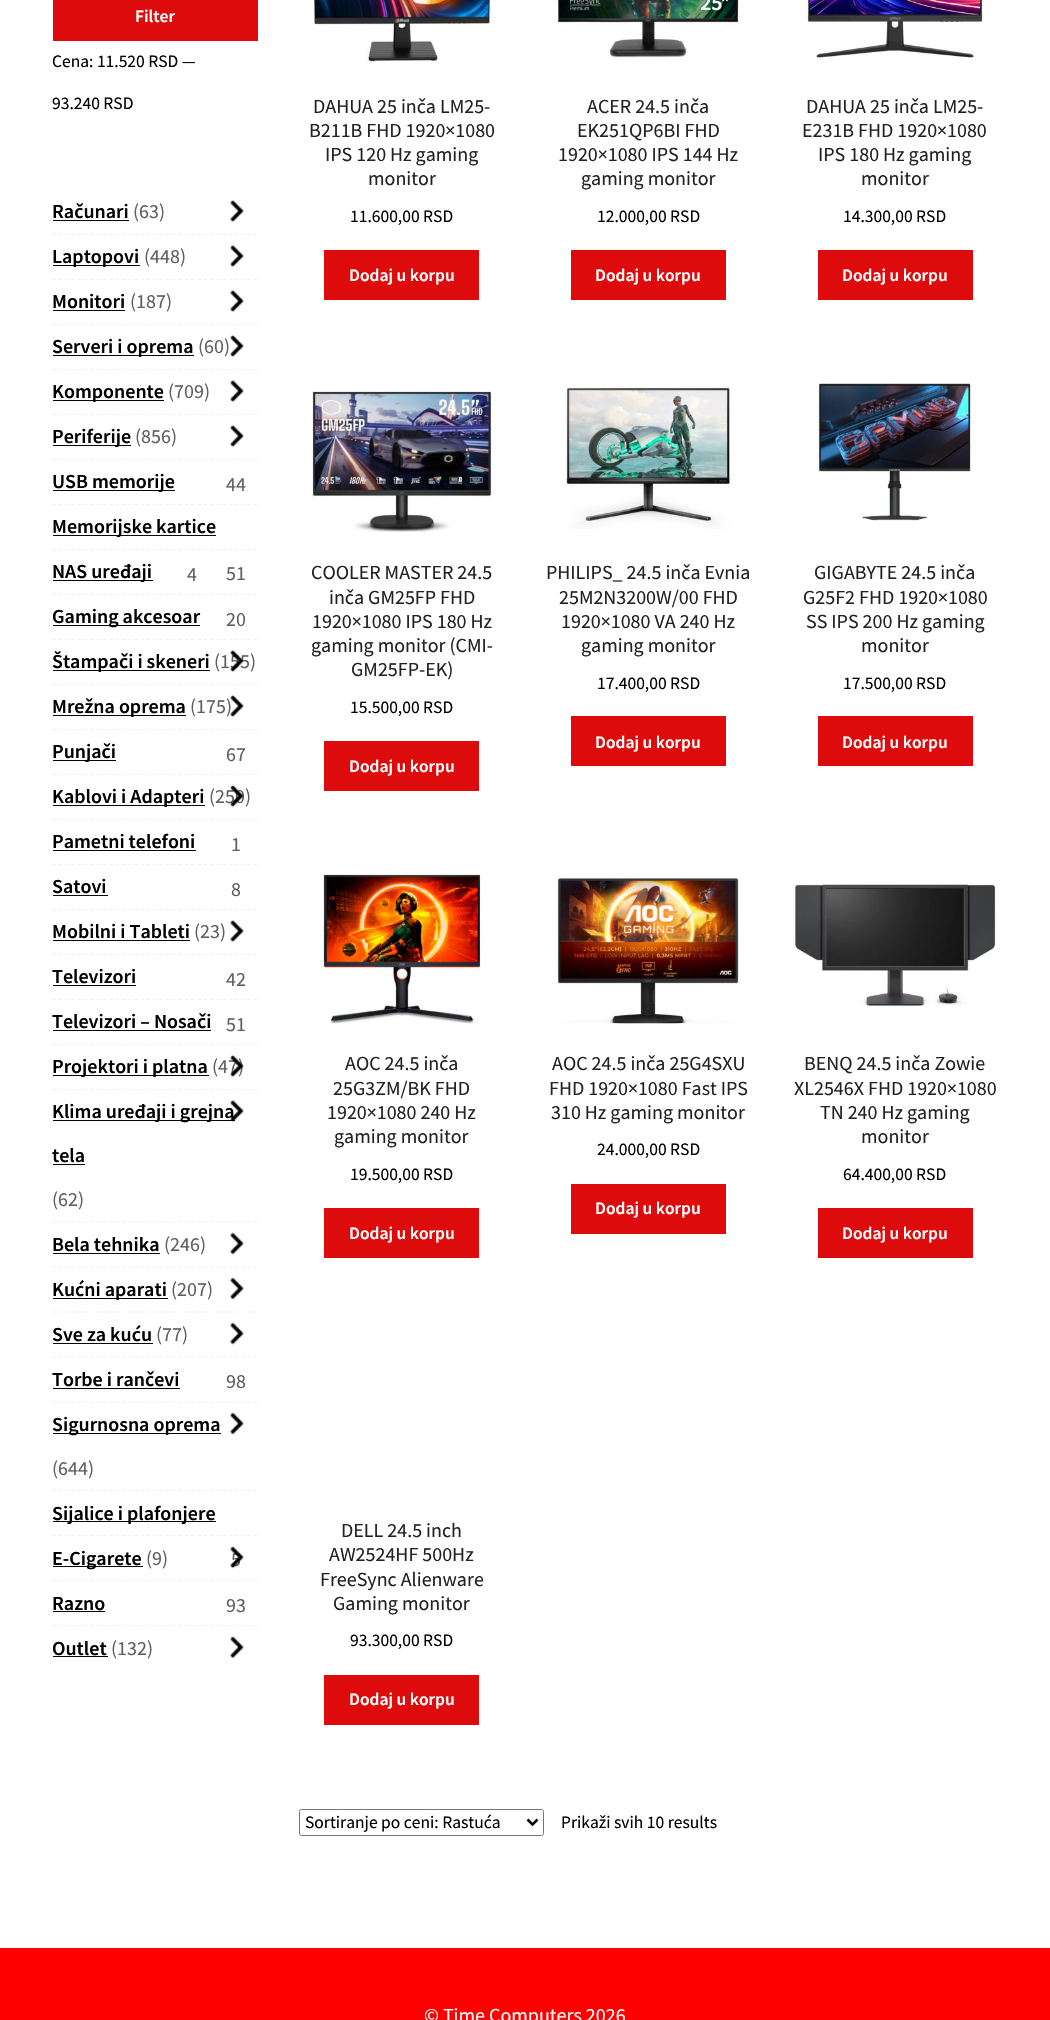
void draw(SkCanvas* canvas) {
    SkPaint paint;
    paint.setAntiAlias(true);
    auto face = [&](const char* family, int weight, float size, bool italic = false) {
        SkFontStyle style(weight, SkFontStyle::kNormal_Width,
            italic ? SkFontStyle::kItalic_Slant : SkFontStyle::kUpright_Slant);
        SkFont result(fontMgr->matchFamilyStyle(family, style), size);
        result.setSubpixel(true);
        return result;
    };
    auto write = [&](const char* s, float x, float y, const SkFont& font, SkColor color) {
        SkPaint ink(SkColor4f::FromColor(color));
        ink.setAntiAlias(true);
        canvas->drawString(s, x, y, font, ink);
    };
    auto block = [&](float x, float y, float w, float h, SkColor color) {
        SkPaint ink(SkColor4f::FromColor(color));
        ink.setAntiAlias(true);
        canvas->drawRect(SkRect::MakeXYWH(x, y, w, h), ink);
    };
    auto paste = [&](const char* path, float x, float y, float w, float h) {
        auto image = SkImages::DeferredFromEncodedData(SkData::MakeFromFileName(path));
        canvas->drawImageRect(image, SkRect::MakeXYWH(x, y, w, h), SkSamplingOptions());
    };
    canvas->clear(SK_ColorWHITE);
    block(53, 0, 205, 41, SkColorSetRGB(221, 11, 11));
    auto kFont1 = face("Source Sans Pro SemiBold", 600, 17.5f);
    write("Filter", 135, 22, kFont1, SK_ColorWHITE);
    auto kFont2 = face("Source Sans Pro", 400, 17.5f);
    write("Cena: 11.520 RSD —", 52, 67, kFont2, SK_ColorBLACK);
    write("93.240 RSD", 52, 109, kFont2, SK_ColorBLACK);
    paint.setStyle(SkPaint::kStroke_Style);
    paint.setStrokeWidth(1.2f);
    paint.setColor(SkColorSetRGB(240, 240, 240));
    paint.setPathEffect(SkDashPathEffect::Make({{3.75f, 2.54f}}, 0));
    canvas->drawPath(SkPathBuilder().moveTo(52.5f, 234.5f).lineTo(257.5f, 234.5f).detach(), paint);
    paint.setPathEffect(nullptr);
    auto kFont3 = face("Source Sans Pro SemiBold", 600, 20);
    write("Računari", 52, 218, kFont3, SK_ColorBLACK);
    block(53, 220, 76, 1, SkColorSetRGB(5, 5, 5));
    auto kFont4 = face("Source Sans Pro", 400, 20);
    write("(63)", 133, 218, kFont4, SkColorSetRGB(96, 95, 95));
    paste("pic1.png", 229, 199, 15, 24);
    paint.setPathEffect(SkDashPathEffect::Make({{3.75f, 2.54f}}, 0));
    canvas->drawPath(SkPathBuilder().moveTo(52.5f, 279.5f).lineTo(257.5f, 279.5f).detach(), paint);
    paint.setPathEffect(nullptr);
    block(53, 265, 87, 1, SkColorSetRGB(5, 5, 5));
    write("Laptopovi", 52, 263, kFont3, SK_ColorBLACK);
    write("(448)", 144, 263, kFont4, SkColorSetRGB(96, 95, 95));
    paste("pic1.png", 229, 244, 15, 24);
    paint.setPathEffect(SkDashPathEffect::Make({{3.75f, 2.54f}}, 0));
    canvas->drawPath(SkPathBuilder().moveTo(52.5f, 324.5f).lineTo(257.5f, 324.5f).detach(), paint);
    paint.setPathEffect(nullptr);
    write("Monitori", 52, 308, kFont3, SK_ColorBLACK);
    block(53, 310, 72, 1, SkColorSetRGB(5, 5, 5));
    write("(187)", 130, 308, kFont4, SkColorSetRGB(96, 95, 95));
    paste("pic1.png", 229, 289, 15, 24);
    paint.setPathEffect(SkDashPathEffect::Make({{3.75f, 2.54f}}, 0));
    canvas->drawPath(SkPathBuilder().moveTo(52.5f, 369.5f).lineTo(257.5f, 369.5f).detach(), paint);
    paint.setPathEffect(nullptr);
    block(53, 355, 141, 1, SkColorSetRGB(5, 5, 5));
    write("Serveri i oprema", 52, 353, kFont3, SK_ColorBLACK);
    write("(60)", 198, 353, kFont4, SkColorSetRGB(96, 95, 95));
    paste("pic1.png", 229, 334, 15, 24);
    paint.setPathEffect(SkDashPathEffect::Make({{3.75f, 2.54f}}, 0));
    canvas->drawPath(SkPathBuilder().moveTo(52.5f, 414.5f).lineTo(257.5f, 414.5f).detach(), paint);
    paint.setPathEffect(nullptr);
    block(53, 400, 111, 1, SkColorSetRGB(5, 5, 5));
    write("Komponente", 52, 398, kFont3, SK_ColorBLACK);
    write("(709)", 168, 398, kFont4, SkColorSetRGB(96, 95, 95));
    paste("pic1.png", 229, 379, 15, 24);
    paint.setPathEffect(SkDashPathEffect::Make({{3.75f, 2.54f}}, 0));
    canvas->drawPath(SkPathBuilder().moveTo(52.5f, 459.5f).lineTo(257.5f, 459.5f).detach(), paint);
    paint.setPathEffect(nullptr);
    block(53, 445, 78, 1, SkColorSetRGB(5, 5, 5));
    write("Periferije", 52, 443, kFont3, SK_ColorBLACK);
    write("(856)", 135, 443, kFont4, SkColorSetRGB(96, 95, 95));
    paste("pic1.png", 229, 424, 15, 24);
    paint.setPathEffect(SkDashPathEffect::Make({{3.75f, 2.54f}}, 0));
    canvas->drawPath(SkPathBuilder().moveTo(52.5f, 504.5f).lineTo(257.5f, 504.5f).detach(), paint);
    paint.setPathEffect(nullptr);
    block(53, 490, 122, 1, SkColorSetRGB(5, 5, 5));
    write("USB memorije", 52, 488, kFont3, SK_ColorBLACK);
    write("44", 226, 491, kFont4, SkColorSetRGB(96, 95, 95));
    paint.setPathEffect(SkDashPathEffect::Make({{3.75f, 2.54f}}, 0));
    canvas->drawPath(SkPathBuilder().moveTo(52.5f, 549.5f).lineTo(257.5f, 549.5f).detach(), paint);
    paint.setPathEffect(nullptr);
    block(53, 535, 163, 1, SkColorSetRGB(5, 5, 5));
    write("Memorijske kartice", 52, 533, kFont3, SK_ColorBLACK);
    write("51", 226, 580, kFont4, SkColorSetRGB(96, 95, 95));
    paint.setPathEffect(SkDashPathEffect::Make({{3.75f, 2.54f}}, 0));
    canvas->drawPath(SkPathBuilder().moveTo(52.5f, 594.5f).lineTo(257.5f, 594.5f).detach(), paint);
    paint.setPathEffect(nullptr);
    block(53, 580, 100, 1, SkColorSetRGB(5, 5, 5));
    write("NAS uređaji", 52, 578, kFont3, SK_ColorBLACK);
    write("4", 187, 581, kFont4, SkColorSetRGB(96, 95, 95));
    paint.setPathEffect(SkDashPathEffect::Make({{3.75f, 2.54f}}, 0));
    canvas->drawPath(SkPathBuilder().moveTo(52.5f, 639.5f).lineTo(257.5f, 639.5f).detach(), paint);
    paint.setPathEffect(nullptr);
    block(53, 625, 147, 1, SkColorSetRGB(5, 5, 5));
    write("Gaming akcesoar", 52, 623, kFont3, SK_ColorBLACK);
    write("20", 226, 626, kFont4, SkColorSetRGB(96, 95, 95));
    paint.setPathEffect(SkDashPathEffect::Make({{3.75f, 2.54f}}, 0));
    canvas->drawPath(SkPathBuilder().moveTo(52.5f, 684.5f).lineTo(257.5f, 684.5f).detach(), paint);
    paint.setPathEffect(nullptr);
    block(53, 670, 157, 1, SkColorSetRGB(5, 5, 5));
    write("Štampači i skeneri", 52, 668, kFont3, SK_ColorBLACK);
    write("(155)", 214, 668, kFont4, SkColorSetRGB(96, 95, 95));
    paste("pic2.png", 229, 649, 15, 24);
    paint.setPathEffect(SkDashPathEffect::Make({{3.75f, 2.54f}}, 0));
    canvas->drawPath(SkPathBuilder().moveTo(52.5f, 729.5f).lineTo(257.5f, 729.5f).detach(), paint);
    paint.setPathEffect(nullptr);
    block(53, 715, 133, 1, SkColorSetRGB(5, 5, 5));
    write("Mrežna oprema", 52, 713, kFont3, SK_ColorBLACK);
    write("(175)", 190, 713, kFont4, SkColorSetRGB(96, 95, 95));
    paste("pic3.png", 229, 694, 15, 24);
    paint.setPathEffect(SkDashPathEffect::Make({{3.75f, 2.54f}}, 0));
    canvas->drawPath(SkPathBuilder().moveTo(52.5f, 774.5f).lineTo(257.5f, 774.5f).detach(), paint);
    paint.setPathEffect(nullptr);
    block(53, 760, 63, 1, SkColorSetRGB(5, 5, 5));
    write("Punjači", 52, 758, kFont3, SK_ColorBLACK);
    write("67", 226, 761, kFont4, SkColorSetRGB(96, 95, 95));
    paint.setPathEffect(SkDashPathEffect::Make({{3.75f, 2.54f}}, 0));
    canvas->drawPath(SkPathBuilder().moveTo(52.5f, 819.5f).lineTo(257.5f, 819.5f).detach(), paint);
    paint.setPathEffect(nullptr);
    block(53, 805, 152, 1, SkColorSetRGB(5, 5, 5));
    write("Kablovi i Adapteri", 52, 803, kFont3, SK_ColorBLACK);
    write("(250)", 209, 803, kFont4, SkColorSetRGB(96, 95, 95));
    paste("pic4.png", 229, 784, 15, 24);
    paint.setPathEffect(SkDashPathEffect::Make({{3.75f, 2.54f}}, 0));
    canvas->drawPath(SkPathBuilder().moveTo(52.5f, 864.5f).lineTo(257.5f, 864.5f).detach(), paint);
    paint.setPathEffect(nullptr);
    write("Pametni telefoni", 52, 848, kFont3, SK_ColorBLACK);
    block(53, 850, 143, 1, SkColorSetRGB(5, 5, 5));
    write("1", 231, 851, kFont4, SkColorSetRGB(96, 95, 95));
    paint.setPathEffect(SkDashPathEffect::Make({{3.75f, 2.54f}}, 0));
    canvas->drawPath(SkPathBuilder().moveTo(52.5f, 909.5f).lineTo(257.5f, 909.5f).detach(), paint);
    paint.setPathEffect(nullptr);
    write("Satovi", 52, 893, kFont3, SK_ColorBLACK);
    block(53, 895, 55, 1, SkColorSetRGB(5, 5, 5));
    write("8", 231, 896, kFont4, SkColorSetRGB(96, 95, 95));
    paint.setPathEffect(SkDashPathEffect::Make({{3.75f, 2.54f}}, 0));
    canvas->drawPath(SkPathBuilder().moveTo(52.5f, 954.5f).lineTo(257.5f, 954.5f).detach(), paint);
    paint.setPathEffect(nullptr);
    write("Mobilni i Tableti", 52, 938, kFont3, SK_ColorBLACK);
    block(53, 940, 137, 1, SkColorSetRGB(5, 5, 5));
    write("(23)", 194, 938, kFont4, SkColorSetRGB(96, 95, 95));
    paste("pic1.png", 229, 919, 15, 24);
    paint.setPathEffect(SkDashPathEffect::Make({{3.75f, 2.54f}}, 0));
    canvas->drawPath(SkPathBuilder().moveTo(52.5f, 999.5f).lineTo(257.5f, 999.5f).detach(), paint);
    paint.setPathEffect(nullptr);
    write("Televizori", 52, 983, kFont3, SK_ColorBLACK);
    block(53, 985, 83, 1, SkColorSetRGB(5, 5, 5));
    write("42", 226, 986, kFont4, SkColorSetRGB(96, 95, 95));
    paint.setPathEffect(SkDashPathEffect::Make({{3.75f, 2.54f}}, 0));
    canvas->drawPath(SkPathBuilder().moveTo(52.5f, 1044.5f).lineTo(257.5f, 1044.5f).detach(), paint);
    paint.setPathEffect(nullptr);
    write("Televizori – Nosači", 52, 1028, kFont3, SK_ColorBLACK);
    block(53, 1030, 158, 1, SkColorSetRGB(5, 5, 5));
    write("51", 226, 1031, kFont4, SkColorSetRGB(96, 95, 95));
    paint.setPathEffect(SkDashPathEffect::Make({{3.75f, 2.54f}}, 0));
    canvas->drawPath(SkPathBuilder().moveTo(52.5f, 1089.5f).lineTo(257.5f, 1089.5f).detach(), paint);
    paint.setPathEffect(nullptr);
    block(53, 1075, 156, 1, SkColorSetRGB(5, 5, 5));
    write("Projektori i platna", 52, 1073, kFont3, SK_ColorBLACK);
    write("(47)", 212, 1073, kFont4, SkColorSetRGB(96, 95, 95));
    paste("pic5.png", 229, 1054, 15, 24);
    paint.setPathEffect(SkDashPathEffect::Make({{3.75f, 2.54f}}, 0));
    canvas->drawPath(SkPathBuilder().moveTo(52.5f, 1222).lineTo(257.5f, 1222).detach(), paint);
    paint.setPathEffect(nullptr);
    block(53, 1120, 182, 1, SkColorSetRGB(5, 5, 5));
    write("Klima uređaji i grejna", 52, 1118, kFont3, SK_ColorBLACK);
    write("tela", 52, 1162, kFont3, SK_ColorBLACK);
    block(53, 1164, 32, 1, SkColorSetRGB(5, 5, 5));
    paste("pic6.png", 229, 1099, 15, 24);
    write("(62)", 52, 1206, kFont4, SkColorSetRGB(96, 95, 95));
    paint.setPathEffect(SkDashPathEffect::Make({{3.75f, 2.54f}}, 0));
    canvas->drawPath(SkPathBuilder().moveTo(52.5f, 1267).lineTo(257.5f, 1267).detach(), paint);
    paint.setPathEffect(nullptr);
    write("Bela tehnika", 52, 1251, kFont3, SK_ColorBLACK);
    block(53, 1253, 107, 1, SkColorSetRGB(5, 5, 5));
    write("(246)", 164, 1251, kFont4, SkColorSetRGB(96, 95, 95));
    paste("pic7.png", 229, 1232, 15, 23);
    paint.setPathEffect(SkDashPathEffect::Make({{3.75f, 2.54f}}, 0));
    canvas->drawPath(SkPathBuilder().moveTo(52.5f, 1312).lineTo(257.5f, 1312).detach(), paint);
    paint.setPathEffect(nullptr);
    block(53, 1298, 115, 1, SkColorSetRGB(5, 5, 5));
    write("Kućni aparati", 52, 1296, kFont3, SK_ColorBLACK);
    write("(207)", 171, 1296, kFont4, SkColorSetRGB(96, 95, 95));
    paste("pic7.png", 229, 1277, 15, 23);
    paint.setPathEffect(SkDashPathEffect::Make({{3.75f, 2.54f}}, 0));
    canvas->drawPath(SkPathBuilder().moveTo(52.5f, 1357).lineTo(257.5f, 1357).detach(), paint);
    paint.setPathEffect(nullptr);
    write("Sve za kuću", 52, 1341, kFont3, SK_ColorBLACK);
    block(53, 1343, 100, 1, SkColorSetRGB(5, 5, 5));
    write("(77)", 156, 1341, kFont4, SkColorSetRGB(96, 95, 95));
    paste("pic7.png", 229, 1322, 15, 23);
    paint.setPathEffect(SkDashPathEffect::Make({{3.75f, 2.54f}}, 0));
    canvas->drawPath(SkPathBuilder().moveTo(52.5f, 1402).lineTo(257.5f, 1402).detach(), paint);
    paint.setPathEffect(nullptr);
    write("Torbe i rančevi", 52, 1386, kFont3, SK_ColorBLACK);
    block(53, 1388, 127, 1, SkColorSetRGB(5, 5, 5));
    write("98", 226, 1388, kFont4, SkColorSetRGB(96, 95, 95));
    paint.setPathEffect(SkDashPathEffect::Make({{3.75f, 2.54f}}, 0));
    canvas->drawPath(SkPathBuilder().moveTo(52.5f, 1490.5f).lineTo(257.5f, 1490.5f).detach(), paint);
    paint.setPathEffect(nullptr);
    block(53, 1433, 168, 1, SkColorSetRGB(5, 5, 5));
    write("Sigurnosna oprema", 52, 1431, kFont3, SK_ColorBLACK);
    paste("pic7.png", 229, 1412, 15, 23);
    write("(644)", 52, 1475, kFont4, SkColorSetRGB(96, 95, 95));
    paint.setPathEffect(SkDashPathEffect::Make({{3.75f, 2.54f}}, 0));
    canvas->drawPath(SkPathBuilder().moveTo(52.5f, 1535.5f).lineTo(257.5f, 1535.5f).detach(), paint);
    paint.setPathEffect(nullptr);
    block(53, 1521, 163, 1, SkColorSetRGB(5, 5, 5));
    write("Sijalice i plafonjere", 52, 1520, kFont3, SK_ColorBLACK);
    write("5", 231, 1566, kFont4, SkColorSetRGB(96, 95, 95));
    paint.setPathEffect(SkDashPathEffect::Make({{3.75f, 2.54f}}, 0));
    canvas->drawPath(SkPathBuilder().moveTo(52.5f, 1580.5f).lineTo(257.5f, 1580.5f).detach(), paint);
    paint.setPathEffect(nullptr);
    block(53, 1566, 90, 1, SkColorSetRGB(5, 5, 5));
    write("E-Cigarete", 52, 1565, kFont3, SK_ColorBLACK);
    write("(9)", 146, 1565, kFont4, SkColorSetRGB(96, 95, 95));
    paste("pic8.png", 229, 1546, 15, 23);
    paint.setPathEffect(SkDashPathEffect::Make({{3.75f, 2.54f}}, 0));
    canvas->drawPath(SkPathBuilder().moveTo(52.5f, 1625.5f).lineTo(257.5f, 1625.5f).detach(), paint);
    paint.setPathEffect(nullptr);
    write("Razno", 52, 1610, kFont3, SK_ColorBLACK);
    block(53, 1611, 52, 1, SkColorSetRGB(5, 5, 5));
    write("93", 226, 1612, kFont4, SkColorSetRGB(96, 95, 95));
    write("Outlet", 52, 1655, kFont3, SK_ColorBLACK);
    block(53, 1656, 55, 1, SkColorSetRGB(5, 5, 5));
    write("(132)", 111, 1655, kFont4, SkColorSetRGB(96, 95, 95));
    paste("pic9.png", 229, 1636, 15, 23);
    paste("pic10.png", 314, 0, 178, 63);
    write("DAHUA 25 inča LM25-", 313, 113, kFont4, SkColorSetRGB(34, 34, 34));
    write("B211B FHD 1920×1080", 309, 137, kFont4, SkColorSetRGB(34, 34, 34));
    write("IPS 120 Hz gaming", 325, 161, kFont4, SkColorSetRGB(34, 34, 34));
    write("monitor", 368, 185, kFont4, SkColorSetRGB(34, 34, 34));
    write("11.600,00 RSD", 350, 222, kFont2, SK_ColorBLACK);
    block(324, 250, 155, 50, SkColorSetRGB(221, 11, 11));
    write("Dodaj u korpu", 349, 281, kFont1, SK_ColorWHITE);
    paste("pic11.png", 557, 0, 182, 58);
    write("ACER 24.5 inča", 587, 113, kFont4, SkColorSetRGB(34, 34, 34));
    write("EK251QP6BI FHD", 577, 137, kFont4, SkColorSetRGB(34, 34, 34));
    write("1920×1080 IPS 144 Hz", 558, 161, kFont4, SkColorSetRGB(34, 34, 34));
    write("gaming monitor", 581, 185, kFont4, SkColorSetRGB(34, 34, 34));
    write("12.000,00 RSD", 597, 222, kFont2, SK_ColorBLACK);
    block(571, 250, 155, 50, SkColorSetRGB(221, 11, 11));
    write("Dodaj u korpu", 595, 281, kFont1, SK_ColorWHITE);
    paste("pic12.png", 807, 0, 178, 58);
    write("DAHUA 25 inča LM25-", 806, 113, kFont4, SkColorSetRGB(34, 34, 34));
    write("E231B FHD 1920×1080", 802, 137, kFont4, SkColorSetRGB(34, 34, 34));
    write("IPS 180 Hz gaming", 818, 161, kFont4, SkColorSetRGB(34, 34, 34));
    write("monitor", 861, 185, kFont4, SkColorSetRGB(34, 34, 34));
    write("14.300,00 RSD", 843, 222, kFont2, SK_ColorBLACK);
    block(818, 250, 155, 50, SkColorSetRGB(221, 11, 11));
    write("Dodaj u korpu", 842, 281, kFont1, SK_ColorWHITE);
    paste("pic13.png", 311, 389, 181, 143);
    write("COOLER MASTER 24.5", 311, 579, kFont4, SkColorSetRGB(34, 34, 34));
    write("inča GM25FP FHD", 329, 604, kFont4, SkColorSetRGB(34, 34, 34));
    write("1920×1080 IPS 180 Hz", 312, 628, kFont4, SkColorSetRGB(34, 34, 34));
    write("gaming monitor (CMI-", 311, 652, kFont4, SkColorSetRGB(34, 34, 34));
    write("GM25FP-EK)", 351, 676, kFont4, SkColorSetRGB(34, 34, 34));
    write("15.500,00 RSD", 350, 713, kFont2, SK_ColorBLACK);
    block(324, 741, 155, 50, SkColorSetRGB(221, 11, 11));
    write("Dodaj u korpu", 349, 772, kFont1, SK_ColorWHITE);
    paste("pic14.png", 565, 386, 168, 143);
    write("PHILIPS_ 24.5 inča Evnia", 546, 579, kFont4, SkColorSetRGB(34, 34, 34));
    write("25M2N3200W/00 FHD", 559, 604, kFont4, SkColorSetRGB(34, 34, 34));
    write("1920×1080 VA 240 Hz", 561, 628, kFont4, SkColorSetRGB(34, 34, 34));
    write("gaming monitor", 581, 652, kFont4, SkColorSetRGB(34, 34, 34));
    write("17.400,00 RSD", 597, 689, kFont2, SK_ColorBLACK);
    block(571, 716, 155, 50, SkColorSetRGB(221, 11, 11));
    write("Dodaj u korpu", 595, 748, kFont1, SK_ColorWHITE);
    paste("pic15.png", 818, 383, 156, 138);
    write("GIGABYTE 24.5 inča", 814, 579, kFont4, SkColorSetRGB(34, 34, 34));
    write("G25F2 FHD 1920×1080", 803, 604, kFont4, SkColorSetRGB(34, 34, 34));
    write("SS IPS 200 Hz gaming", 806, 628, kFont4, SkColorSetRGB(34, 34, 34));
    write("monitor", 861, 652, kFont4, SkColorSetRGB(34, 34, 34));
    write("17.500,00 RSD", 843, 689, kFont2, SK_ColorBLACK);
    block(818, 716, 155, 50, SkColorSetRGB(221, 11, 11));
    write("Dodaj u korpu", 842, 748, kFont1, SK_ColorWHITE);
    paste("pic16.png", 323, 874, 159, 150);
    write("AOC 24.5 inča", 345, 1070, kFont4, SkColorSetRGB(34, 34, 34));
    write("25G3ZM/BK FHD", 333, 1095, kFont4, SkColorSetRGB(34, 34, 34));
    write("1920×1080 240 Hz", 327, 1119, kFont4, SkColorSetRGB(34, 34, 34));
    write("gaming monitor", 334, 1143, kFont4, SkColorSetRGB(34, 34, 34));
    write("19.500,00 RSD", 350, 1180, kFont2, SK_ColorBLACK);
    block(324, 1208, 155, 50, SkColorSetRGB(221, 11, 11));
    write("Dodaj u korpu", 349, 1239, kFont1, SK_ColorWHITE);
    paste("pic17.png", 555, 874, 184, 150);
    write("AOC 24.5 inča 25G4SXU", 552, 1070, kFont4, SkColorSetRGB(34, 34, 34));
    write("FHD 1920×1080 Fast IPS", 549, 1095, kFont4, SkColorSetRGB(34, 34, 34));
    write("310 Hz gaming monitor", 551, 1119, kFont4, SkColorSetRGB(34, 34, 34));
    write("24.000,00 RSD", 597, 1155, kFont2, SK_ColorBLACK);
    block(571, 1184, 155, 50, SkColorSetRGB(221, 11, 11));
    write("Dodaj u korpu", 595, 1214, kFont1, SK_ColorWHITE);
    paste("pic18.png", 793, 884, 203, 123);
    write("BENQ 24.5 inča Zowie", 804, 1070, kFont4, SkColorSetRGB(34, 34, 34));
    write("XL2546X FHD 1920×1080", 794, 1095, kFont4, SkColorSetRGB(34, 34, 34));
    write("TN 240 Hz gaming", 820, 1119, kFont4, SkColorSetRGB(34, 34, 34));
    write("monitor", 861, 1143, kFont4, SkColorSetRGB(34, 34, 34));
    write("64.400,00 RSD", 843, 1180, kFont2, SK_ColorBLACK);
    block(818, 1208, 155, 50, SkColorSetRGB(221, 11, 11));
    write("Dodaj u korpu", 842, 1239, kFont1, SK_ColorWHITE);
    write("DELL 24.5 inch", 341, 1537, kFont4, SkColorSetRGB(34, 34, 34));
    write("AW2524HF 500Hz", 329, 1561, kFont4, SkColorSetRGB(34, 34, 34));
    write("FreeSync Alienware", 320, 1586, kFont4, SkColorSetRGB(34, 34, 34));
    write("Gaming monitor", 333, 1610, kFont4, SkColorSetRGB(34, 34, 34));
    write("93.300,00 RSD", 350, 1646, kFont2, SK_ColorBLACK);
    block(324, 1675, 155, 50, SkColorSetRGB(221, 11, 11));
    write("Dodaj u korpu", 349, 1705, kFont1, SK_ColorWHITE);
    paint.setStrokeWidth(1);
    paint.setColor(SkColorSetRGB(118, 118, 118));
    canvas->drawRoundRect(SkRect::MakeXYWH(299.5f, 1809.5f, 244, 26), 2, 2, paint);
    paint.setStrokeWidth(2.5f);
    paint.setColor(SK_ColorBLACK);
    canvas->drawPath(SkPathBuilder().moveTo(527.5f, 1819.5f).lineTo(532.5f, 1824.5f).lineTo(537.5f, 1819.5f).detach(), paint);
    write("Sortiranje po ceni: Rastuća", 305, 1828, kFont2, SK_ColorBLACK);
    write("Prikaži svih 10 results", 561, 1828, kFont2, SK_ColorBLACK);
    block(0, 1948, 1050, 72, SkColorSetRGB(255, 0, 0));
    write("© Time Computers 2026", 424, 2022, kFont4, SK_ColorWHITE);
}
